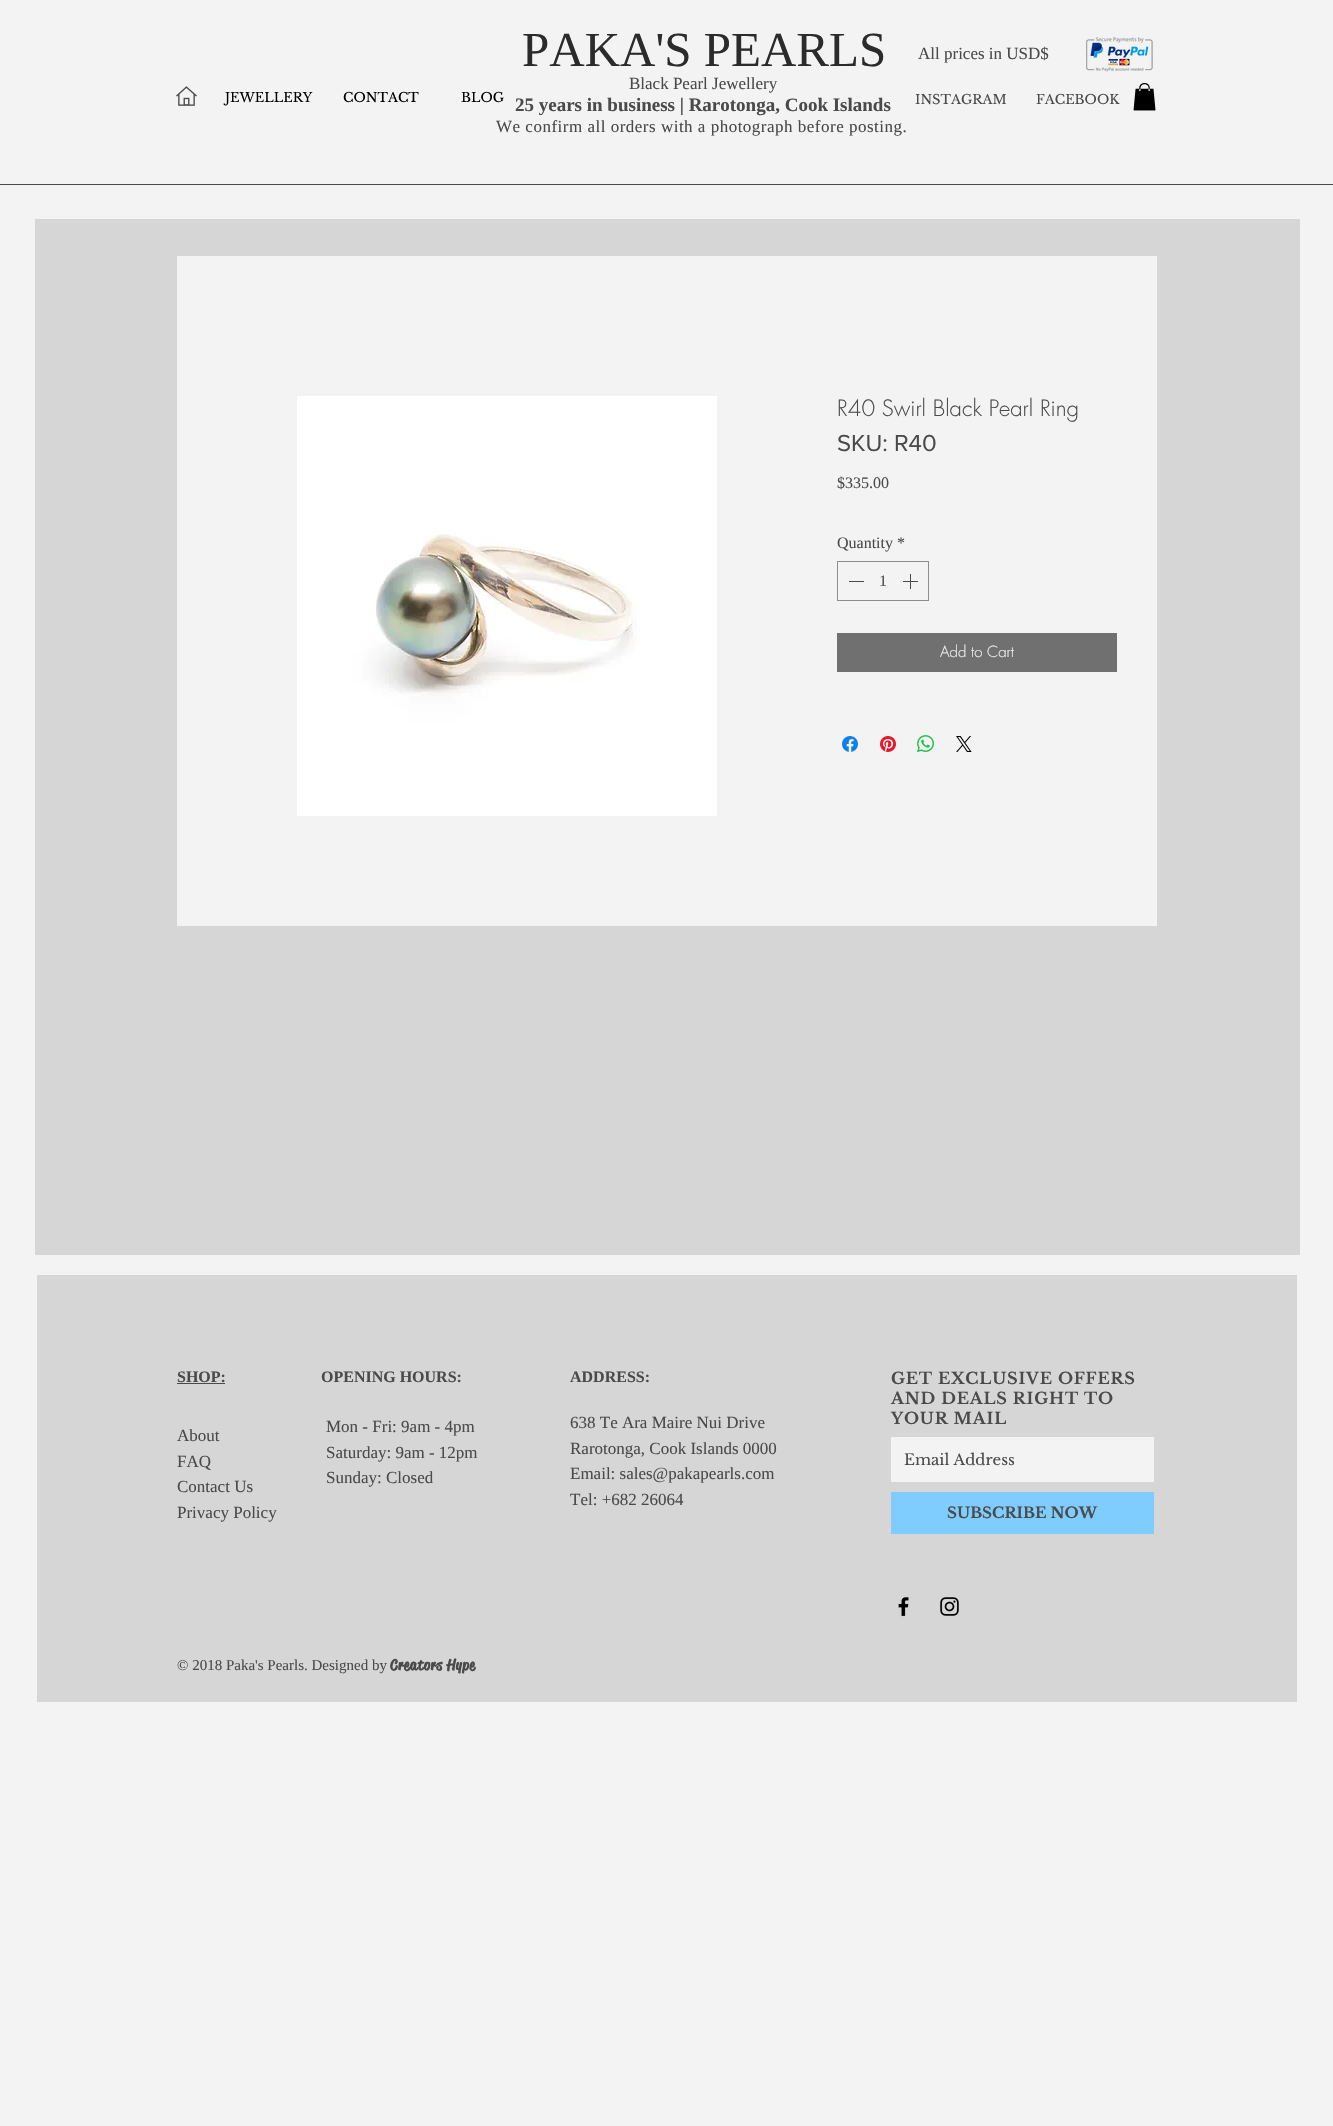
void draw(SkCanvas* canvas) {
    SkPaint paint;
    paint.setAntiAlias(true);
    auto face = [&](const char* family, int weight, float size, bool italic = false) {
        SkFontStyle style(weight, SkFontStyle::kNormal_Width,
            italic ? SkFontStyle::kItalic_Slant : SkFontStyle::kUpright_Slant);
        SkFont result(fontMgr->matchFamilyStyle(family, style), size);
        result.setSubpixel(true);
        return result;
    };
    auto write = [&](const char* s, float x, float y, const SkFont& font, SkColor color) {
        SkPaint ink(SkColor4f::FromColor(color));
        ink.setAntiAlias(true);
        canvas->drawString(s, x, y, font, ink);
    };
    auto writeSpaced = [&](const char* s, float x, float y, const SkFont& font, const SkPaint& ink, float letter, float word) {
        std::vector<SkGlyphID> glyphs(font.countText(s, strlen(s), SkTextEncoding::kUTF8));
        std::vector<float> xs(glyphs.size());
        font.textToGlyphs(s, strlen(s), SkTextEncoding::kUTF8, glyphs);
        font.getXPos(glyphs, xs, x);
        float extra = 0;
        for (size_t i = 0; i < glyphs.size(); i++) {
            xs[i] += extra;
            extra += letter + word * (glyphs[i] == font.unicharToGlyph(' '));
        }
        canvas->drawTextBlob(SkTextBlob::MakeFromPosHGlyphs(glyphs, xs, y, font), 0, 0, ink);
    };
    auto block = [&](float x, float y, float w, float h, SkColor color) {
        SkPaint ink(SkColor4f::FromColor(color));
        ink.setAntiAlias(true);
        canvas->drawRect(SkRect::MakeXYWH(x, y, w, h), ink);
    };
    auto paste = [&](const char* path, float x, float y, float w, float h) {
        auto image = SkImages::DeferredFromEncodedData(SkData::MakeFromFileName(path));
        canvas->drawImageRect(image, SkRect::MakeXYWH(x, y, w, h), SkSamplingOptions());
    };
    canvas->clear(SkColorSetRGB(243, 243, 243));
    auto kFont1 = face("Liberation Serif", 400, 49);
    write("PAKA'S PEARLS", 522, 66, kFont1, SkColorSetRGB(43, 43, 43));
    auto kFont2 = face("Liberation Serif", 400, 17);
    write("All prices in USD$", 918, 59, kFont2, SkColorSetRGB(74, 74, 74));
    paste("pic1.png", 1086, 37, 67, 35);
    paste("pic2.png", 176, 86, 21, 20);
    auto kFont3 = face("Libre Baskerville", 400, 13);
    write("JEWELLERY", 225, 102, kFont3, SK_ColorBLACK);
    write("CONTACT", 343, 102, kFont3, SK_ColorBLACK);
    write("BLOG", 461, 102, kFont3, SK_ColorBLACK);
    write("Black Pearl Jewellery", 629, 89, kFont2, SkColorSetRGB(74, 74, 74));
    auto kFont4 = face("Liberation Serif", 700, 19);
    write("25 years in business | Rarotonga, Cook Islands", 515, 111, kFont4, SkColorSetRGB(74, 74, 74));
    paint.setColor(SkColorSetRGB(74, 74, 74));
    writeSpaced("We confirm all orders with a photograph before posting.", 496, 132, kFont2, paint, 0.5f, 0);
    write("INSTAGRAM", 915, 104, kFont3, SkColorSetRGB(74, 74, 74));
    write("FACEBOOK", 1036, 104, kFont3, SkColorSetRGB(74, 74, 74));
    paste("pic3.png", 1133, 83, 23, 28);
    block(0, 184, 1333, 1, SkColorSetRGB(74, 74, 74));
    block(35, 219, 1265, 1036, SkColorSetRGB(214, 214, 214));
    block(177, 256, 980, 670, SkColorSetRGB(243, 243, 243));
    paste("pic4.png", 297, 396, 420, 420);
    auto kFont5 = face("futura", 300, 22);
    write("R40 Swirl Black Pearl Ring", 837, 416, kFont5, SkColorSetRGB(74, 74, 74));
    auto kFont6 = face("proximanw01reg", 400, 24);
    write("SKU: R40", 837, 451, kFont6, SkColorSetRGB(74, 74, 74));
    auto kFont7 = face("Liberation Serif", 400, 16);
    write("$335.00", 837, 488, kFont7, SkColorSetRGB(74, 74, 74));
    write("Quantity *", 837, 548, kFont7, SkColorSetRGB(74, 74, 74));
    paint.setStyle(SkPaint::kStroke_Style);
    paint.setStrokeWidth(1);
    paint.setColor(SkColorSetRGB(142, 142, 142));
    canvas->drawRect(SkRect::MakeXYWH(837.5f, 561.5f, 91, 39), paint);
    block(849, 581, 15, 1, SkColorSetRGB(74, 74, 74));
    write("1", 879, 586, kFont7, SkColorSetRGB(74, 74, 74));
    paste("pic5.png", 903, 574, 15, 15);
    block(837, 633, 280, 39, SkColorSetRGB(113, 112, 112));
    auto kFont8 = face("futura", 300, 15);
    write("Add to Cart", 940, 657, kFont8, SkColorSetRGB(243, 243, 243));
    paste("pic6.png", 842, 736, 16, 16);
    paste("pic7.png", 880, 736, 16, 16);
    paste("pic8.png", 917, 735, 17, 17);
    paste("pic9.png", 956, 736, 16, 16);
    block(37, 1275, 1260, 427, SkColorSetRGB(214, 214, 214));
    auto kFont9 = face("Liberation Serif", 700, 16);
    write("SHOP:", 177, 1382, kFont9, SkColorSetRGB(74, 74, 74));
    block(177, 1383, 48, 1, SkColorSetRGB(74, 74, 74));
    write("OPENING HOURS:", 321, 1382, kFont9, SkColorSetRGB(74, 74, 74));
    write("Mon - Fri: 9am - 4pm", 326, 1432, kFont2, SkColorSetRGB(74, 74, 74));
    write("Saturday: 9am - 12pm", 326, 1458, kFont2, SkColorSetRGB(74, 74, 74));
    write("Sunday: Closed", 326, 1483, kFont2, SkColorSetRGB(74, 74, 74));
    write("ADDRESS:", 570, 1382, kFont9, SkColorSetRGB(74, 74, 74));
    write("638 Te Ara Maire Nui Drive", 570, 1428, kFont2, SkColorSetRGB(74, 74, 74));
    write("Rarotonga, Cook Islands 0000", 570, 1454, kFont2, SkColorSetRGB(74, 74, 74));
    write("Email: sales@pakapearls.com", 570, 1479, kFont2, SkColorSetRGB(74, 74, 74));
    write("Tel: +682 26064", 570, 1505, kFont2, SkColorSetRGB(74, 74, 74));
    auto kFont10 = face("Libre Baskerville", 700, 16);
    paint.setStyle(SkPaint::kFill_Style);
    paint.setColor(SkColorSetRGB(74, 74, 74));
    writeSpaced("GET EXCLUSIVE OFFERS", 891, 1384, kFont10, paint, 0.8f, 0);
    writeSpaced("AND DEALS RIGHT TO", 891, 1404, kFont10, paint, 0.8f, 0);
    writeSpaced("YOUR MAIL", 891, 1424, kFont10, paint, 0.8f, 0);
    write("About", 177, 1441, kFont2, SkColorSetRGB(74, 74, 74));
    write("FAQ", 177, 1467, kFont2, SkColorSetRGB(74, 74, 74));
    write("Contact Us", 177, 1492, kFont2, SkColorSetRGB(74, 74, 74));
    write("Privacy Policy", 177, 1518, kFont2, SkColorSetRGB(74, 74, 74));
    block(891, 1437, 263, 45, SkColorSetRGB(243, 243, 243));
    auto kFont11 = face("Libre Baskerville", 400, 15);
    write("Email Address", 904, 1465, kFont11, SkColorSetRGB(74, 74, 74));
    block(891, 1492, 263, 42, SkColorSetRGB(127, 204, 255));
    auto kFont12 = face("Libre Baskerville", 700, 15);
    write("SUBSCRIBE NOW", 947, 1518, kFont12, SkColorSetRGB(74, 74, 74));
    paste("pic10.png", 898, 1597, 11, 20);
    paste("pic11.png", 940, 1597, 19, 19);
    auto kFont13 = face("Liberation Serif", 400, 15);
    write("© 2018 Paka's Pearls. Designed by", 177, 1670, kFont13, SkColorSetRGB(74, 74, 74));
    auto kFont14 = face("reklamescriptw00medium", 700, 15);
    writeSpaced("Creators Hype", 390, 1670, kFont14, paint, 0.75f, 0);
}
